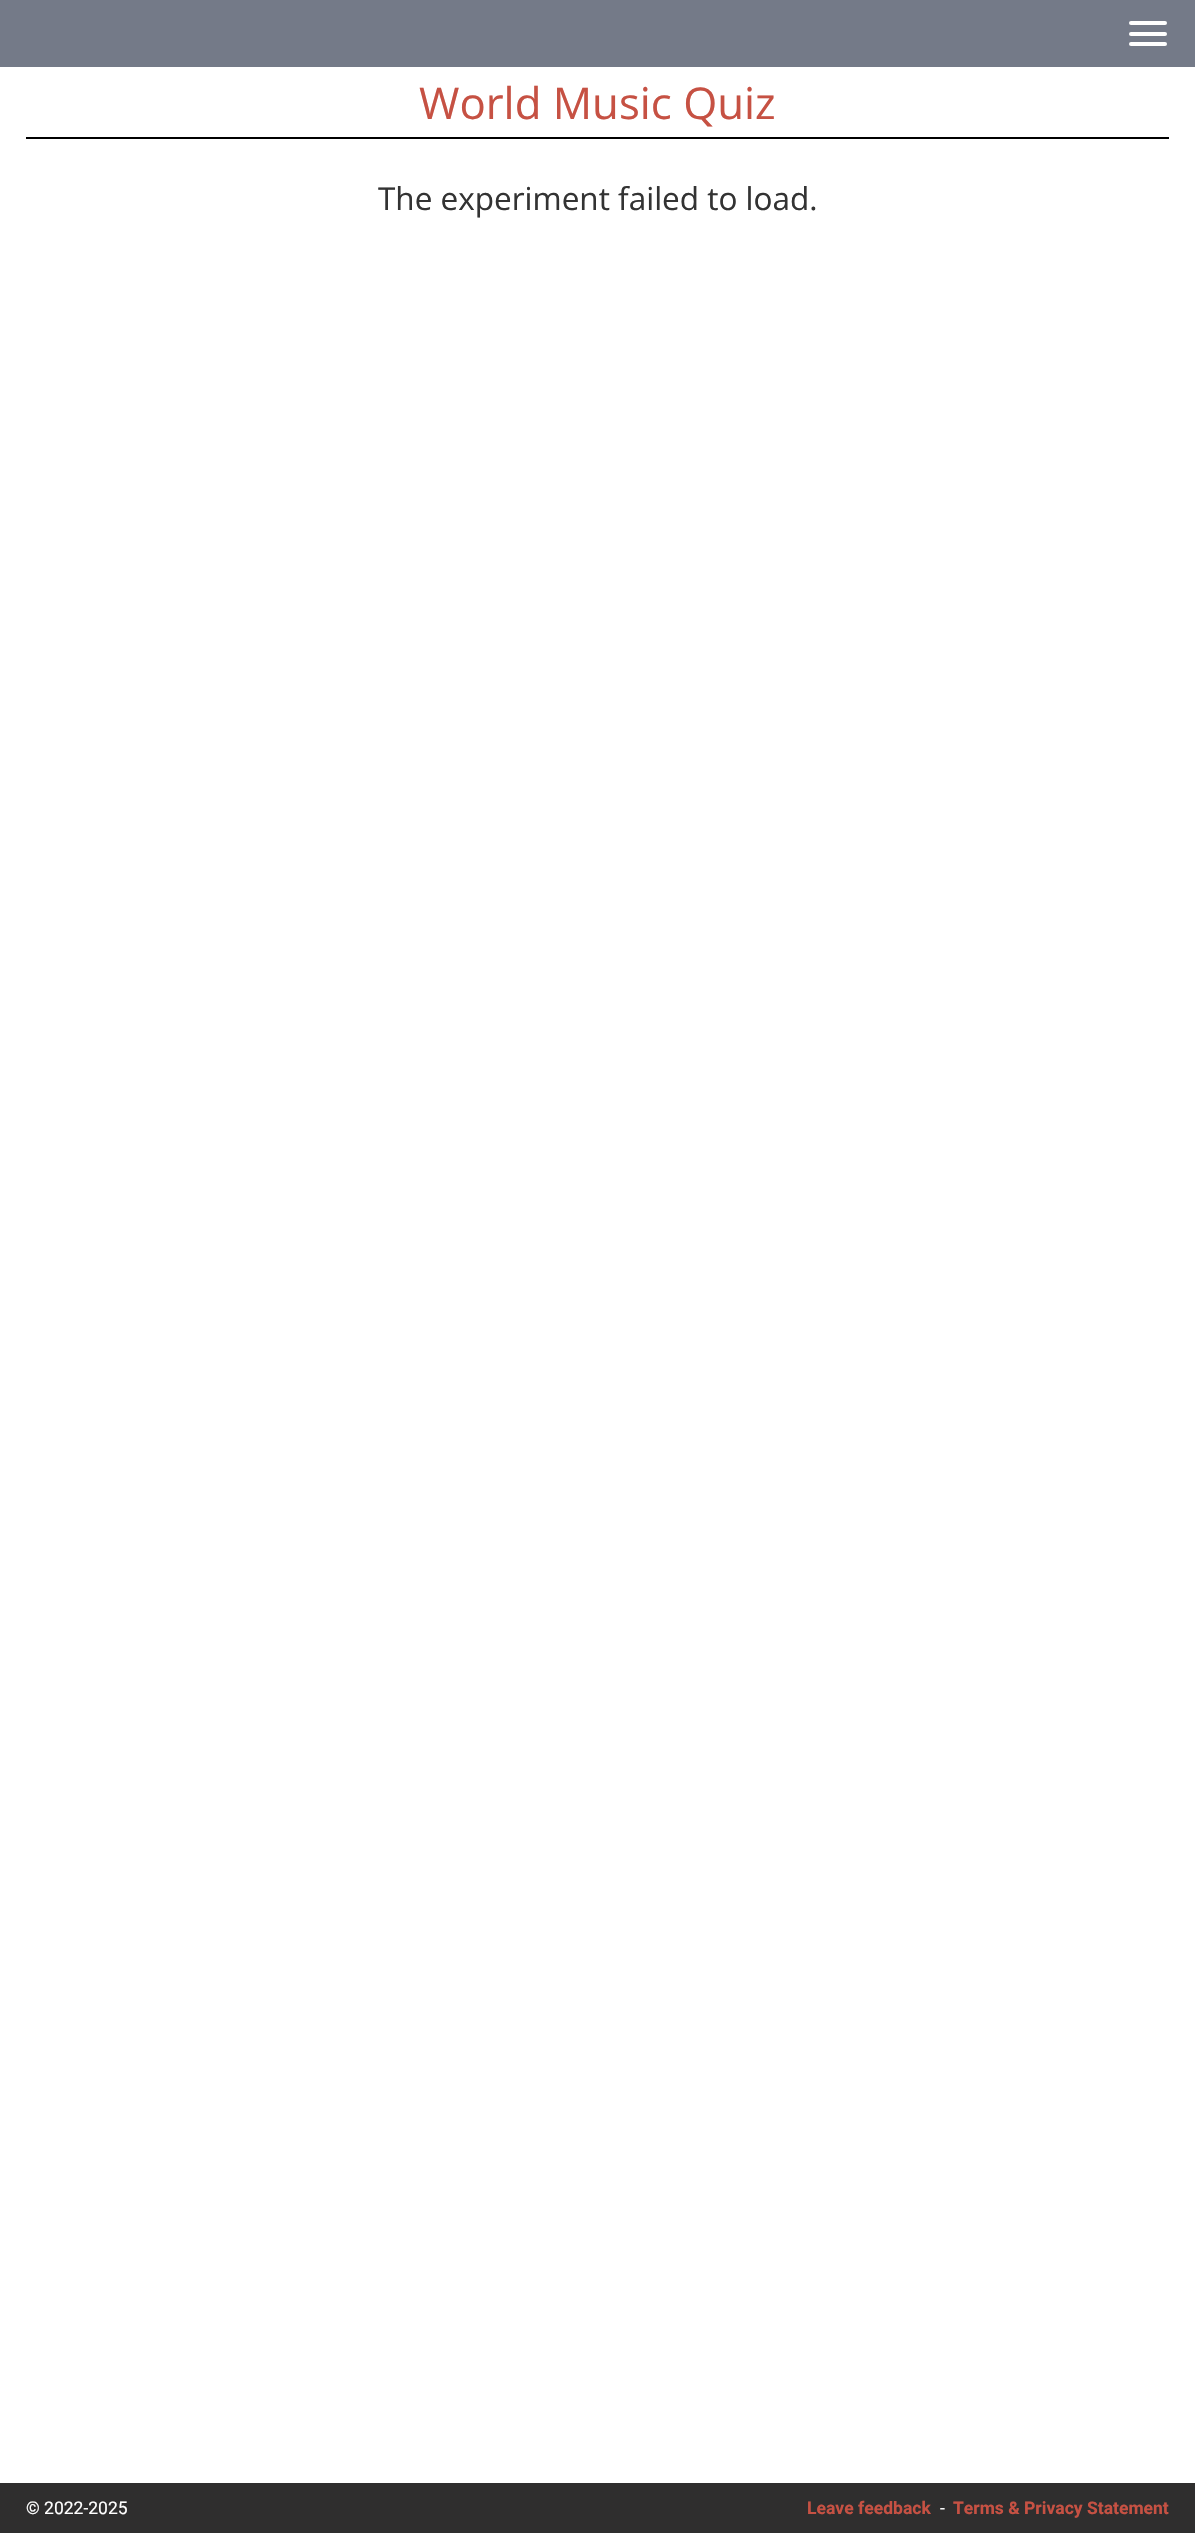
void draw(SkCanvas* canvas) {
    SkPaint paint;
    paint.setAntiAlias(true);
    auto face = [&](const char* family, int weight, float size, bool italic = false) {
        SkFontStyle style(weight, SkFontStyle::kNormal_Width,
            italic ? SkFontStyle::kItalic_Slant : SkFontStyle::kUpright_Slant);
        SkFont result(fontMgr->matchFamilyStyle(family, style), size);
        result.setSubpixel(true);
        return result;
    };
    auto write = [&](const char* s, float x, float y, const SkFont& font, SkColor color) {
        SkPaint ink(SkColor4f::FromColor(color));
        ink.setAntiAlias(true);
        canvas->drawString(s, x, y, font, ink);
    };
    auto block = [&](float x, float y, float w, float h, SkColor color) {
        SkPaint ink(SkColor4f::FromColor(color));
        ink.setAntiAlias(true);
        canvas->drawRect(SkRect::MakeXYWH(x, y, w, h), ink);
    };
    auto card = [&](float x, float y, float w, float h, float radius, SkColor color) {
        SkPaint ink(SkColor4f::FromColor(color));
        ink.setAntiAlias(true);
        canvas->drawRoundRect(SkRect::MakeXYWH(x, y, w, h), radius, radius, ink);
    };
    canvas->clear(SK_ColorWHITE);
    block(0, 0, 1195, 67, SkColorSetRGB(116, 122, 136));
    card(1129, 21, 38, 4, 2, SK_ColorWHITE);
    card(1129, 32, 38, 4, 2, SK_ColorWHITE);
    card(1129, 42, 38, 4, 2, SK_ColorWHITE);
    auto kFont1 = face("Open Sans", 400, 43.75f);
    write("World Music Quiz", 419, 119, kFont1, SkColorSetRGB(198, 81, 67));
    block(26, 137, 1143, 2, SK_ColorBLACK);
    auto kFont2 = face("Open Sans", 400, 31.5f);
    write("The experiment failed to load.", 378, 210, kFont2, SkColorSetRGB(51, 51, 51));
    block(0, 2483, 1195, 50, SkColorSetRGB(47, 46, 46));
    auto kFont3 = face("Heebo", 400, 17.5f);
    write("© 2022-2025", 26, 2514, kFont3, SK_ColorWHITE);
    auto kFont4 = face("Heebo", 700, 17.5f);
    write("Leave feedback", 807, 2514, kFont4, SkColorSetRGB(198, 81, 67));
    write("-", 940, 2514, kFont3, SK_ColorWHITE);
    write("Terms & Privacy Statement", 953, 2514, kFont4, SkColorSetRGB(198, 81, 67));
}
